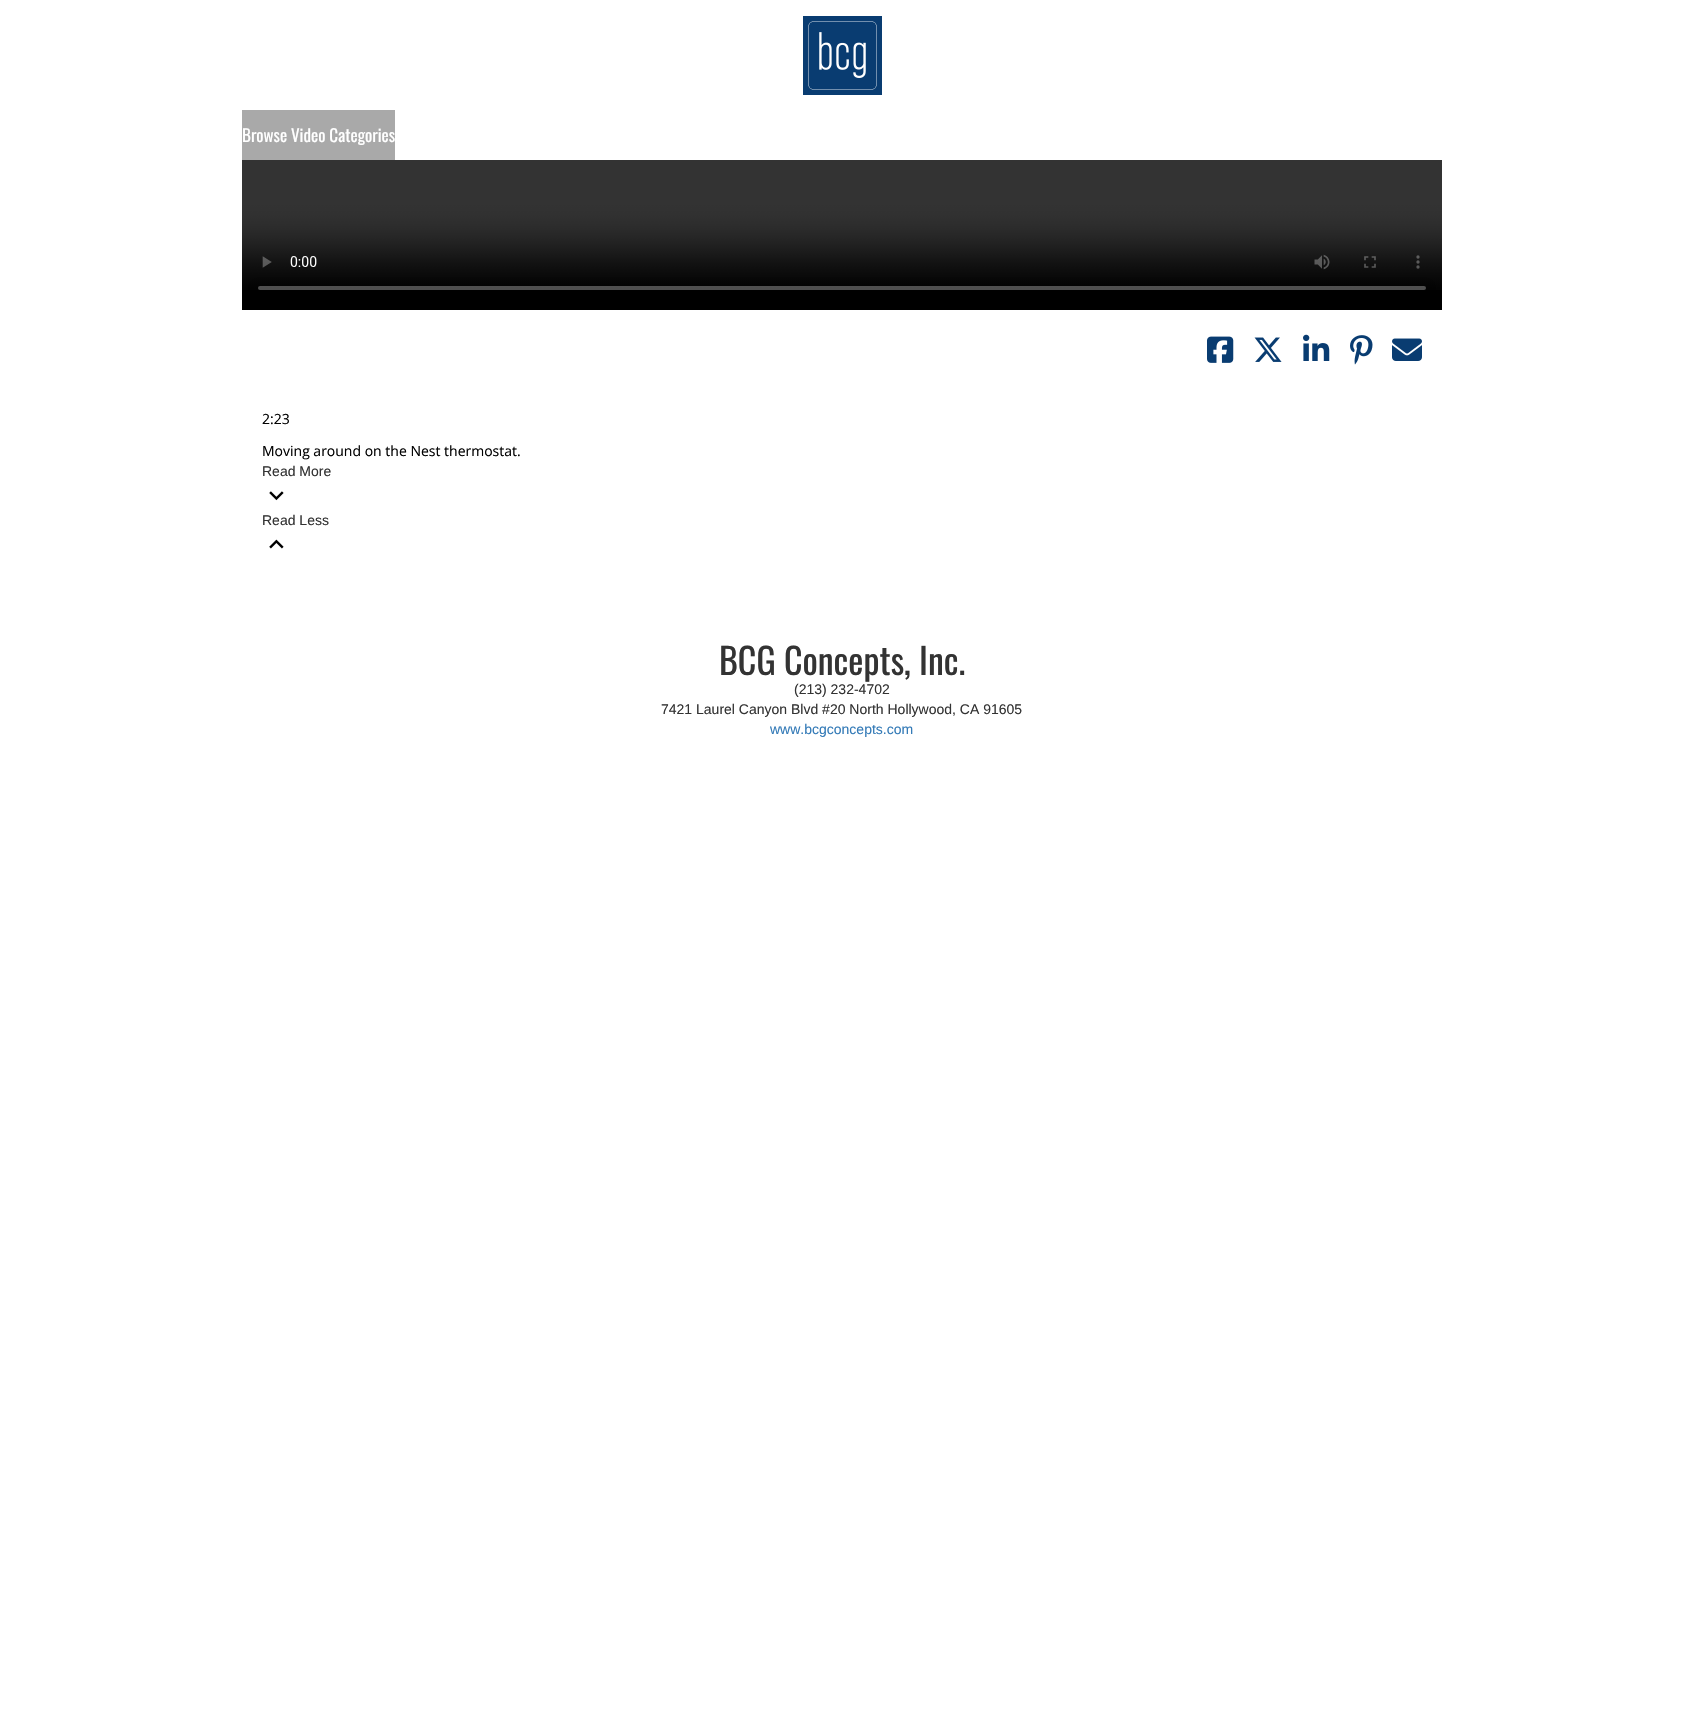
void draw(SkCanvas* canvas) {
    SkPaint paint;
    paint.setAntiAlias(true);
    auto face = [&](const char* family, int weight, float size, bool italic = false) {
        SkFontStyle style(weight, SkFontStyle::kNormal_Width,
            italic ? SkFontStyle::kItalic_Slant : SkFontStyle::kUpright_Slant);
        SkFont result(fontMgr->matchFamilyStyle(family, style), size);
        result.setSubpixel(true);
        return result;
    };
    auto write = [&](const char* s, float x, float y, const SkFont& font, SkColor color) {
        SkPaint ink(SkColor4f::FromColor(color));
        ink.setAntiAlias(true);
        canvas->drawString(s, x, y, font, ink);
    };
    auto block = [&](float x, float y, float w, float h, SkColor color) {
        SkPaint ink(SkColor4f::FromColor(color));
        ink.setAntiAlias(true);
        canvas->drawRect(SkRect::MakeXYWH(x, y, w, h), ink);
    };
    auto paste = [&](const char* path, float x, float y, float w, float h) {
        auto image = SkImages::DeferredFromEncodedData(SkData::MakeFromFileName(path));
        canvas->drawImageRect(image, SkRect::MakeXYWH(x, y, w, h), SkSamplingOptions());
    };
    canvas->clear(SK_ColorWHITE);
    paste("pic1.png", 803, 16, 79, 79);
    block(242, 110, 153, 50, SkColorSetRGB(169, 169, 169));
    auto kFont1 = face("Oswald", 400, 17);
    write("Browse Video Categories", 242, 142, kFont1, SK_ColorWHITE);
    block(242, 290, 1200, 20, SK_ColorBLACK);
    paste("pic2.png", 242, 160, 1200, 130);
    paste("pic3.png", 1207, 336, 27, 27);
    paste("pic4.png", 1254, 337, 28, 25);
    paste("pic5.png", 1303, 334, 27, 27);
    paste("pic6.png", 1350, 335, 23, 30);
    paste("pic7.png", 1392, 338, 30, 23);
    auto kFont2 = face("Open Sans", 400, 14);
    write("2:23", 262, 424, kFont2, SkColorSetRGB(2, 2, 2));
    write("Moving around on the Nest thermostat.", 262, 456, kFont2, SkColorSetRGB(2, 2, 2));
    auto kFont3 = face("Liberation Sans", 400, 14);
    write("Read More", 262, 476, kFont3, SkColorSetRGB(51, 51, 51));
    paste("pic8.png", 269, 491, 15, 10);
    write("Read Less", 262, 525, kFont3, SkColorSetRGB(51, 51, 51));
    paste("pic9.png", 269, 539, 15, 10);
    auto kFont4 = face("Oswald", 400, 36);
    write("BCG Concepts, Inc.", 719, 675, kFont4, SkColorSetRGB(51, 51, 51));
    write("(213) 232-4702", 794, 694, kFont3, SkColorSetRGB(51, 51, 51));
    write("7421 Laurel Canyon Blvd #20 North Hollywood, CA 91605", 661, 714, kFont3, SkColorSetRGB(51, 51, 51));
    write("www.bcgconcepts.com", 770, 734, kFont3, SkColorSetRGB(51, 122, 183));
}
